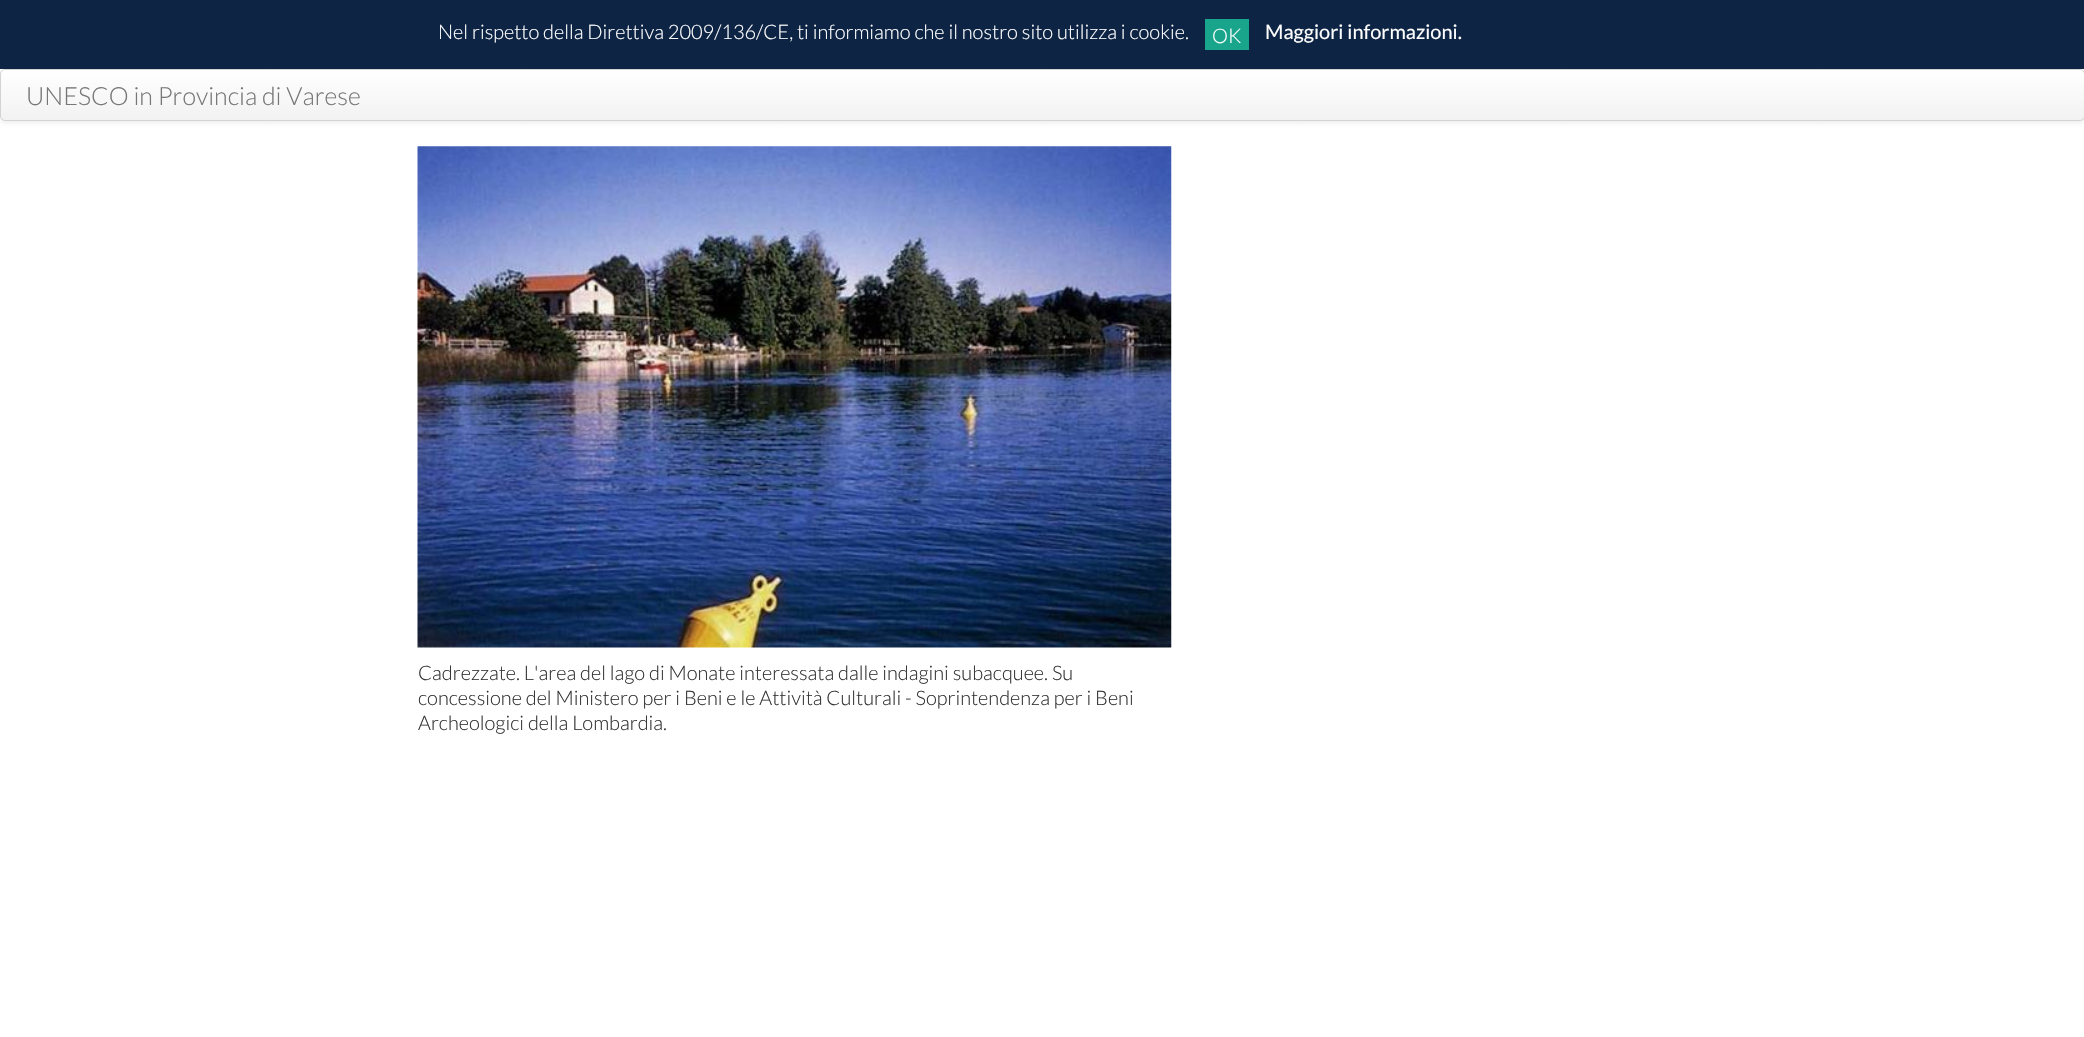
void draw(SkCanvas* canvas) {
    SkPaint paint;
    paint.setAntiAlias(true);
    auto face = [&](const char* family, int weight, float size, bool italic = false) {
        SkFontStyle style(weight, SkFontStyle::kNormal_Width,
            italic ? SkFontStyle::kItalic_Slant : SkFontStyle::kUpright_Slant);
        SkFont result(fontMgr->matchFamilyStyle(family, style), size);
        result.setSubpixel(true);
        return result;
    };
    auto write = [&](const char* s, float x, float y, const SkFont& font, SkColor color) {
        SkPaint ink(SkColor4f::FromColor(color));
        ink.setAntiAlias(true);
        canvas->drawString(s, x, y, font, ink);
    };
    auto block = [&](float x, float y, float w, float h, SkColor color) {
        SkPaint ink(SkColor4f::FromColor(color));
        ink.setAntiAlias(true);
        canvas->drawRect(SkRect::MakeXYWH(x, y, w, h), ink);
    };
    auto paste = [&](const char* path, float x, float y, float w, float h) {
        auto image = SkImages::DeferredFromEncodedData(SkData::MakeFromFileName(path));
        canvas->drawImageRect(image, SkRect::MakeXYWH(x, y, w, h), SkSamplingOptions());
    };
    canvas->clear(SK_ColorWHITE);
    paint.setColor(SkColorSetARGB(18, 0, 0, 0));
    paint.setMaskFilter(SkMaskFilter::MakeBlur(kNormal_SkBlurStyle, 2.5f));
    canvas->drawRoundRect(SkRect::MakeXYWH(0, 70, 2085, 53), 5, 5, paint);
    paint.setMaskFilter(nullptr);
    block(0, 0, 2084, 69, SkColorSetRGB(13, 36, 68));
    auto kFont1 = face("Lato", 300, 20);
    write("Nel rispetto della Direttiva 2009/136/CE, ti informiamo che il nostro sito utilizza i cookie.", 438, 39, kFont1, SK_ColorWHITE);
    block(1205, 19, 44, 31, SkColorSetRGB(25, 165, 139));
    write("OK", 1212, 43, kFont1, SK_ColorWHITE);
    auto kFont2 = face("Lato", 400, 20);
    write("Maggiori informazioni.", 1265, 39, kFont2, SK_ColorWHITE);
    canvas->save();
    canvas->clipPath(SkPathBuilder().moveTo(5, 69).lineTo(2080, 69).cubicTo(2083, 69, 2085, 71, 2085, 74).lineTo(2085, 116).cubicTo(2085, 119, 2083, 121, 2080, 121).lineTo(5, 121).cubicTo(2, 121, 0, 119, 0, 116).lineTo(0, 74).cubicTo(0, 71, 2, 69, 5, 69).close().detach(), true);
    {
        const SkColor colors[] = {SK_ColorWHITE, SkColorSetRGB(242, 242, 242)};
        const float stops[] = {0, 1};
        const SkPoint ends[] = {{1043, 70}, {1043, 120}};
        paint.setShader(SkGradientShader::MakeLinear(ends, colors, stops, 2, SkTileMode::kClamp));
        paint.setAlpha(255);
    }
    canvas->drawRect(SkRect::MakeXYWH(0, 70, 2084, 50), paint);
    canvas->restore();
    paint.setStyle(SkPaint::kStroke_Style);
    paint.setStrokeWidth(1);
    paint.setShader(nullptr);
    paint.setColor(SkColorSetRGB(211, 211, 211));
    canvas->drawRoundRect(SkRect::MakeXYWH(0.5f, 69.5f, 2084, 51), 4.5f, 4.5f, paint);
    auto kFont3 = face("Lato", 300, 25);
    write("UNESCO in Provincia di Varese", 26, 105, kFont3, SkColorSetRGB(119, 119, 119));
    paste("pic1.png", 417, 146, 755, 502);
    write("Cadrezzate. L'area del lago di Monate interessata dalle indagini subacquee. Su", 418, 680, kFont1, SkColorSetRGB(51, 51, 51));
    write("concessione del Ministero per i Beni e le Attività Culturali - Soprintendenza per i Beni", 418, 705, kFont1, SkColorSetRGB(51, 51, 51));
    write("Archeologici della Lombardia.", 418, 730, kFont1, SkColorSetRGB(51, 51, 51));
}
